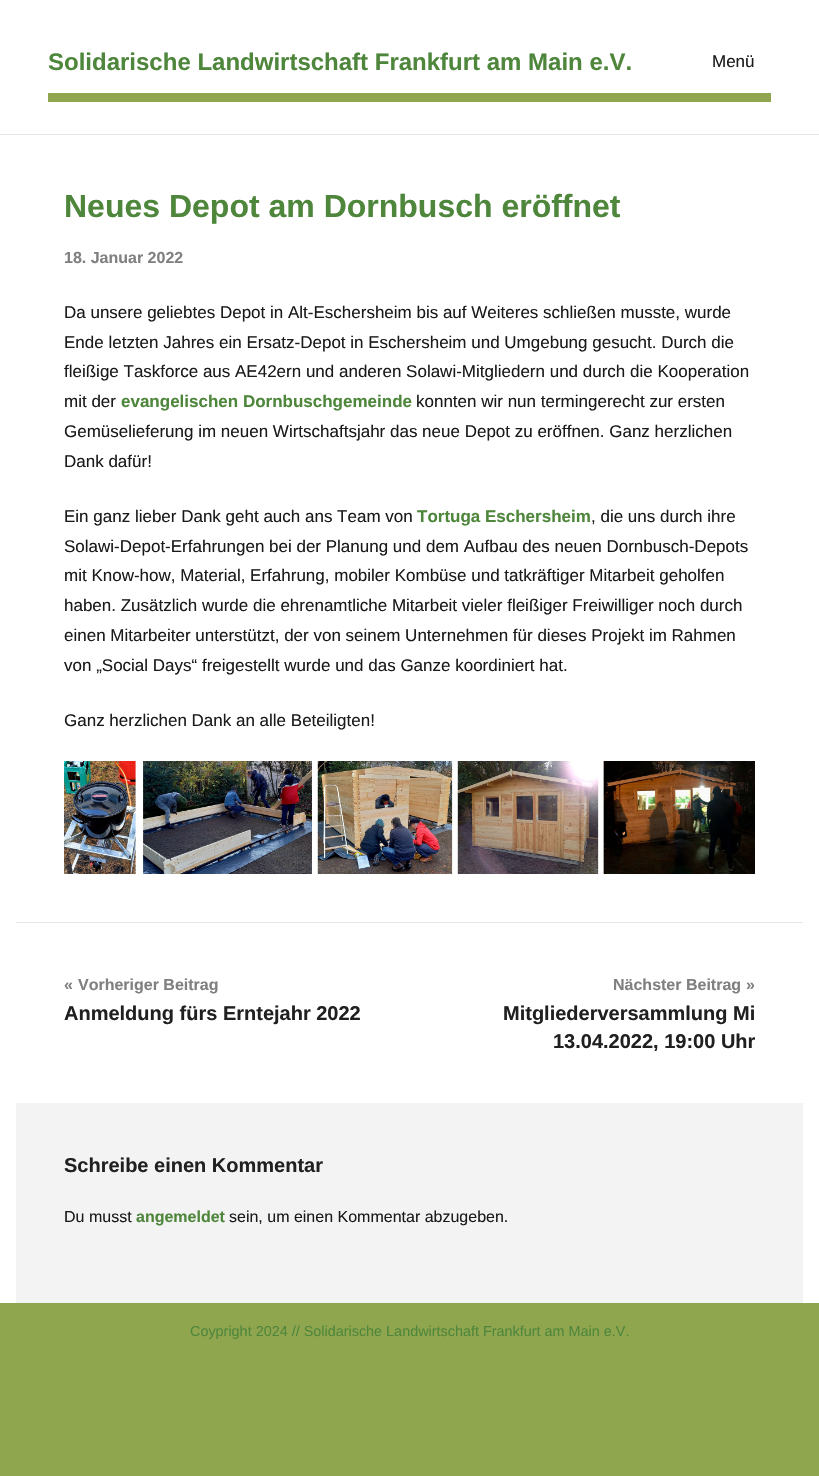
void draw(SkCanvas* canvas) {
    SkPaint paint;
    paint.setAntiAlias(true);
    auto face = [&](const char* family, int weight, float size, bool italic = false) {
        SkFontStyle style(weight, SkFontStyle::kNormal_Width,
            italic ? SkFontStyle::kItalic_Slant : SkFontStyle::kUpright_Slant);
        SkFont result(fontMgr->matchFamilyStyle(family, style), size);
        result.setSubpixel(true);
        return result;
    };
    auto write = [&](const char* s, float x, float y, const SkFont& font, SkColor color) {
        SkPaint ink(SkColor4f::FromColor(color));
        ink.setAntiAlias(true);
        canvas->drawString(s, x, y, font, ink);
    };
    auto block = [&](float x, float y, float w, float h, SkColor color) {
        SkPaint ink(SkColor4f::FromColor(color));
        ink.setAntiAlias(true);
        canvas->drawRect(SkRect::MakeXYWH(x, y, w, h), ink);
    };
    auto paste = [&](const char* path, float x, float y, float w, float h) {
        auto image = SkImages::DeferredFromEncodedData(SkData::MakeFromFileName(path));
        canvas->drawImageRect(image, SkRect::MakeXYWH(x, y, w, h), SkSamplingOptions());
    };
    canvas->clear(SkColorSetRGB(144, 166, 78));
    block(0, 0, 819, 1303, SK_ColorWHITE);
    block(0, 134, 819, 1, SkColorSetRGB(230, 230, 230));
    auto kFont1 = face("Liberation Sans", 700, 24);
    write("Solidarische Landwirtschaft Frankfurt am Main e.V.", 48, 70, kFont1, SkColorSetRGB(78, 134, 59));
    auto kFont2 = face("Liberation Sans", 400, 17);
    write("Menü", 712, 67, kFont2, SkColorSetRGB(26, 26, 26));
    block(48, 93, 723, 9, SkColorSetRGB(144, 166, 78));
    auto kFont3 = face("Liberation Sans", 700, 32);
    write("Neues Depot am Dornbusch eröffnet", 64, 217, kFont3, SkColorSetRGB(78, 134, 59));
    auto kFont4 = face("Liberation Sans", 700, 16);
    write("18. Januar 2022", 64, 263, kFont4, SkColorSetRGB(128, 128, 128));
    write("Da unsere geliebtes Depot in Alt-Eschersheim bis auf Weiteres schließen musste, wurde", 64, 318, kFont2, SkColorSetRGB(26, 26, 26));
    write("Ende letzten Jahres ein Ersatz-Depot in Eschersheim und Umgebung gesucht. Durch die", 64, 348, kFont2, SkColorSetRGB(26, 26, 26));
    write("fleißige Taskforce aus AE42ern und anderen Solawi-Mitgliedern und durch die Kooperation", 64, 377, kFont2, SkColorSetRGB(26, 26, 26));
    write("mit der", 64, 407, kFont2, SkColorSetRGB(26, 26, 26));
    auto kFont5 = face("Liberation Sans", 700, 17);
    write("evangelischen Dornbuschgemeinde", 121, 407, kFont5, SkColorSetRGB(78, 134, 59));
    write("konnten wir nun termingerecht zur ersten", 416, 407, kFont2, SkColorSetRGB(26, 26, 26));
    write("Gemüselieferung im neuen Wirtschaftsjahr das neue Depot zu eröffnen. Ganz herzlichen", 64, 437, kFont2, SkColorSetRGB(26, 26, 26));
    write("Dank dafür!", 64, 467, kFont2, SkColorSetRGB(26, 26, 26));
    write("Ein ganz lieber Dank geht auch ans Team von", 64, 522, kFont2, SkColorSetRGB(26, 26, 26));
    write("Tortuga Eschersheim", 417, 522, kFont5, SkColorSetRGB(78, 134, 59));
    write(", die uns durch ihre", 591, 522, kFont2, SkColorSetRGB(26, 26, 26));
    write("Solawi-Depot-Erfahrungen bei der Planung und dem Aufbau des neuen Dornbusch-Depots", 64, 552, kFont2, SkColorSetRGB(26, 26, 26));
    write("mit Know-how, Material, Erfahrung, mobiler Kombüse und tatkräftiger Mitarbeit geholfen", 64, 581, kFont2, SkColorSetRGB(26, 26, 26));
    write("haben. Zusätzlich wurde die ehrenamtliche Mitarbeit vieler fleißiger Freiwilliger noch durch", 64, 611, kFont2, SkColorSetRGB(26, 26, 26));
    write("einen Mitarbeiter unterstützt, der von seinem Unternehmen für dieses Projekt im Rahmen", 64, 641, kFont2, SkColorSetRGB(26, 26, 26));
    write("von „Social Days“ freigestellt wurde und das Ganze koordiniert hat.", 64, 671, kFont2, SkColorSetRGB(26, 26, 26));
    write("Ganz herzlichen Dank an alle Beteiligten!", 64, 726, kFont2, SkColorSetRGB(26, 26, 26));
    paste("pic1.png", 64, 761, 691, 113);
    block(16, 922, 787, 1, SkColorSetRGB(230, 230, 230));
    write("«", 64, 990, kFont4, SkColorSetRGB(128, 128, 128));
    write("Vorheriger Beitrag", 78, 990, kFont4, SkColorSetRGB(128, 128, 128));
    auto kFont6 = face("Liberation Sans", 700, 20);
    write("Anmeldung fürs Erntejahr 2022", 64, 1020, kFont6, SkColorSetRGB(32, 32, 32));
    write("Nächster Beitrag", 613, 990, kFont4, SkColorSetRGB(128, 128, 128));
    write("»", 746, 990, kFont4, SkColorSetRGB(128, 128, 128));
    write("Mitgliederversammlung Mi", 503, 1020, kFont6, SkColorSetRGB(32, 32, 32));
    write("13.04.2022, 19:00 Uhr", 553, 1048, kFont6, SkColorSetRGB(32, 32, 32));
    block(16, 1103, 787, 200, SkColorSetRGB(243, 243, 243));
    write("Schreibe einen Kommentar", 64, 1172, kFont6, SkColorSetRGB(32, 32, 32));
    auto kFont7 = face("Liberation Sans", 400, 16);
    write("Du musst", 64, 1222, kFont7, SkColorSetRGB(26, 26, 26));
    write("angemeldet", 136, 1222, kFont4, SkColorSetRGB(78, 134, 59));
    write("sein, um einen Kommentar abzugeben.", 229, 1222, kFont7, SkColorSetRGB(26, 26, 26));
    auto kFont8 = face("Liberation Sans", 400, 14.4f);
    write("Coypright 2024 // Solidarische Landwirtschaft Frankfurt am Main e.V.", 190, 1336, kFont8, SkColorSetRGB(78, 134, 59));
}
